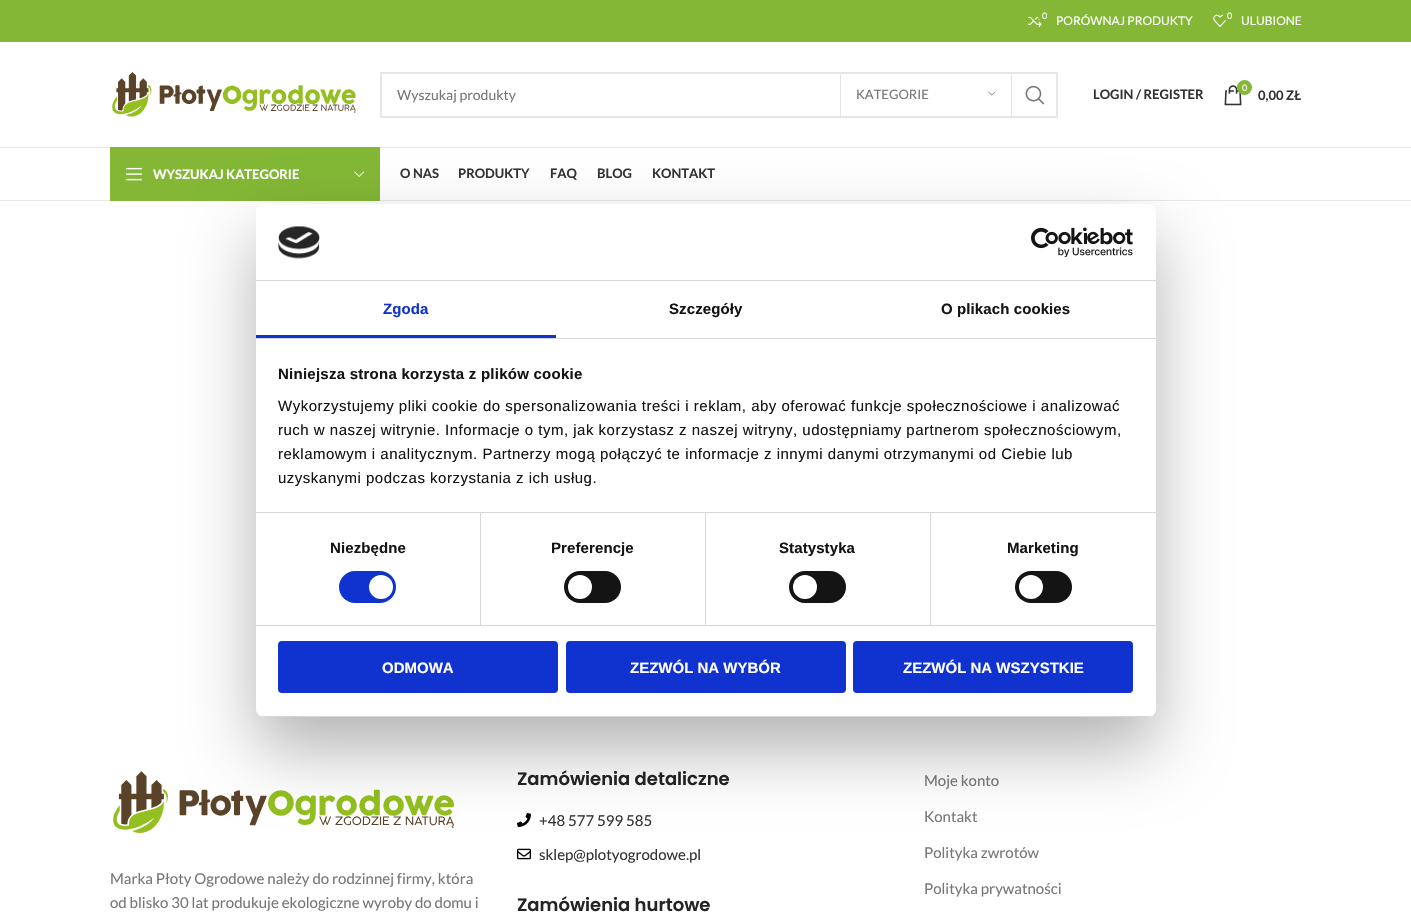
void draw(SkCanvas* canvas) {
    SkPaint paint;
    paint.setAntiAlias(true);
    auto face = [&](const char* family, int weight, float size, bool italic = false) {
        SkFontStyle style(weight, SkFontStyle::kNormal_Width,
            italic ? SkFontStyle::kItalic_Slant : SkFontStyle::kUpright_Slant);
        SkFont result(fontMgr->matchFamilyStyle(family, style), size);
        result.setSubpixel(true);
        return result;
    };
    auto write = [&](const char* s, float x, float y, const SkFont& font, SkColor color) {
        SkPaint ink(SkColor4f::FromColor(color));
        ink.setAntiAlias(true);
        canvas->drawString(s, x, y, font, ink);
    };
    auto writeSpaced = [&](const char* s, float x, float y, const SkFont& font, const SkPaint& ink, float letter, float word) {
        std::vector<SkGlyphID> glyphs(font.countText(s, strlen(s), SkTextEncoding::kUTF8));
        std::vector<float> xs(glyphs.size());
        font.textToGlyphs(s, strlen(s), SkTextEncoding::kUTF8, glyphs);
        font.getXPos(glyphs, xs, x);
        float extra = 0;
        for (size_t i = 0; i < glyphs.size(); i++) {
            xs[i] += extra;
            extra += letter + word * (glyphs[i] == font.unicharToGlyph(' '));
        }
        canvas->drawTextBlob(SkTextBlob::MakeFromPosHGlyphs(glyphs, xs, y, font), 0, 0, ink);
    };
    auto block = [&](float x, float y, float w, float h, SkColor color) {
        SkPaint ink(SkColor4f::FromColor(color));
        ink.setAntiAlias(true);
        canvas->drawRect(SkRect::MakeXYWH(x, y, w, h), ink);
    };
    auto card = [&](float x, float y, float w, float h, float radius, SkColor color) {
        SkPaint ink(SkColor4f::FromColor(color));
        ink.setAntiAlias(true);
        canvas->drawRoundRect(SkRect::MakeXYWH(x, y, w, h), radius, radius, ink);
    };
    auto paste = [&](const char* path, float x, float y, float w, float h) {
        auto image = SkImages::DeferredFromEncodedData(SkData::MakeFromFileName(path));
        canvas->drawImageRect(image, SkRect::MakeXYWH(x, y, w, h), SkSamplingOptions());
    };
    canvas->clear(SK_ColorWHITE);
    block(0, 0, 1411, 42, SkColorSetRGB(131, 183, 53));
    paste("pic1.png", 1028, 15, 14, 12);
    paint.setColor(SkColorSetRGB(131, 183, 53));
    canvas->drawCircle(1044.5f, 15.5f, 6.5f, paint);
    auto kFont1 = face("Lato", 400, 9);
    write("0", 1042, 19, kFont1, SK_ColorWHITE);
    auto kFont2 = face("Lato", 400, 12);
    write("PORÓWNAJ PRODUKTY", 1056, 25, kFont2, SK_ColorWHITE);
    paste("pic2.png", 1213, 14, 13, 13);
    canvas->drawCircle(1229.5f, 15.5f, 6.5f, paint);
    write("0", 1227, 19, kFont1, SK_ColorWHITE);
    write("ULUBIONE", 1241, 25, kFont2, SK_ColorWHITE);
    block(0, 147, 1411, 1, SkColorSetRGB(232, 232, 232));
    paste("pic3.png", 112, 72, 244, 45);
    paint.setStyle(SkPaint::kStroke_Style);
    paint.setStrokeWidth(2);
    paint.setColor(SkColorSetRGB(230, 230, 230));
    canvas->drawRect(SkRect::MakeXYWH(381, 73, 676, 44), paint);
    auto kFont3 = face("Lato", 400, 14);
    write("Wyszukaj produkty", 397, 100, kFont3, SkColorSetRGB(118, 118, 118));
    block(1011, 74, 1, 42, SkColorSetRGB(230, 230, 230));
    block(840, 74, 1, 42, SkColorSetRGB(230, 230, 230));
    auto kFont4 = face("Lato", 400, 13);
    write("KATEGORIE", 856, 99, kFont4, SkColorSetRGB(118, 118, 118));
    paste("pic4.png", 988, 91, 8, 5);
    paste("pic5.png", 1025, 85, 20, 20);
    auto kFont5 = face("Lato", 700, 13);
    write("LOGIN / REGISTER", 1093, 99, kFont5, SkColorSetRGB(51, 51, 51));
    paste("pic6.png", 1224, 85, 18, 21);
    paint.setStyle(SkPaint::kFill_Style);
    paint.setColor(SkColorSetRGB(131, 183, 53));
    canvas->drawCircle(1244.5f, 87.5f, 7.5f, paint);
    write("0", 1242, 91, kFont1, SK_ColorWHITE);
    write("0,00 ZŁ", 1258, 100, kFont5, SkColorSetRGB(51, 51, 51));
    block(0, 200, 1411, 1, SkColorSetRGB(232, 232, 232));
    block(110, 147, 270, 54, SkColorSetRGB(131, 183, 53));
    paste("pic7.png", 126, 167, 16, 14);
    write("WYSZUKAJ KATEGORIE", 153, 179, kFont5, SK_ColorWHITE);
    paste("pic8.png", 354, 171, 11, 6);
    write("O NAS", 400, 178, kFont5, SkColorSetRGB(51, 51, 51));
    write("PRODUKTY", 458, 178, kFont5, SkColorSetRGB(51, 51, 51));
    write("FAQ", 550, 178, kFont5, SkColorSetRGB(51, 51, 51));
    write("BLOG", 597, 178, kFont5, SkColorSetRGB(51, 51, 51));
    write("KONTAKT", 652, 178, kFont5, SkColorSetRGB(51, 51, 51));
    paste("pic9.png", 113, 771, 341, 62);
    auto kFont6 = face("Lato", 400, 15);
    write("Marka Płoty Ogrodowe należy do rodzinnej firmy, która", 110, 884, kFont6, SkColorSetRGB(118, 118, 118));
    write("od blisko 30 lat produkuje ekologiczne wyroby do domu i", 110, 908, kFont6, SkColorSetRGB(118, 118, 118));
    auto kFont7 = face("Poppins", 600, 18);
    write("Zamówienia detaliczne", 517, 785, kFont7, SkColorSetRGB(36, 36, 36));
    paste("pic10.png", 517, 813, 14, 14);
    write("+48 577 599 585", 539, 826, kFont6, SkColorSetRGB(51, 51, 51));
    paste("pic11.png", 517, 848, 14, 12);
    write("sklep@plotyogrodowe.pl", 539, 860, kFont6, SkColorSetRGB(51, 51, 51));
    write("Zamówienia hurtowe", 517, 911, kFont7, SkColorSetRGB(36, 36, 36));
    write("Moje konto", 924, 786, kFont6, SkColorSetRGB(118, 118, 118));
    write("Kontakt", 924, 822, kFont6, SkColorSetRGB(118, 118, 118));
    write("Polityka zwrotów", 924, 858, kFont6, SkColorSetRGB(118, 118, 118));
    write("Polityka prywatności", 924, 894, kFont6, SkColorSetRGB(118, 118, 118));
    paint.setColor(SkColorSetARGB(77, 0, 0, 0));
    paint.setMaskFilter(SkMaskFilter::MakeBlur(kNormal_SkBlurStyle, 34));
    canvas->drawRoundRect(SkRect::MakeXYWH(256, 236, 900, 513), 8, 8, paint);
    paint.setMaskFilter(nullptr);
    card(256, 204, 900, 513, 8, SK_ColorWHITE);
    block(256, 280, 900, 1, SkColorSetRGB(214, 214, 214));
    paste("pic12.png", 278, 226, 42, 33);
    paste("pic13.png", 1031, 227, 102, 30);
    block(256, 338, 900, 1, SkColorSetRGB(214, 214, 214));
    block(256, 335, 300, 3, SkColorSetRGB(16, 50, 207));
    auto kFont8 = face("Liberation Sans", 700, 15);
    paint.setColor(SkColorSetRGB(16, 50, 207));
    writeSpaced("Zgoda", 383, 314, kFont8, paint, 0.1f, 0);
    paint.setColor(SkColorSetRGB(20, 20, 20));
    writeSpaced("Szczegóły", 669, 314, kFont8, paint, 0.1f, 0);
    writeSpaced("O plikach cookies", 941, 314, kFont8, paint, 0.1f, 0);
    block(256, 512, 900, 1, SkColorSetRGB(214, 214, 214));
    writeSpaced("Niniejsza strona korzysta z plików cookie", 278, 379, kFont8, paint, 0.25f, 0);
    auto kFont9 = face("Liberation Sans", 400, 15);
    writeSpaced("Wykorzystujemy pliki cookie do spersonalizowania treści i reklam, aby oferować funkcje społecznościowe i analizować", 278, 411, kFont9, paint, 0.5f, 0);
    writeSpaced("ruch w naszej witrynie. Informacje o tym, jak korzystasz z naszej witryny, udostępniamy partnerom społecznościowym,", 278, 435, kFont9, paint, 0.5f, 0);
    writeSpaced("reklamowym i analitycznym. Partnerzy mogą połączyć te informacje z innymi danymi otrzymanymi od Ciebie lub", 278, 459, kFont9, paint, 0.5f, 0);
    writeSpaced("uzyskanymi podczas korzystania z ich usług.", 278, 483, kFont9, paint, 0.5f, 0);
    block(256, 625, 900, 1, SkColorSetRGB(214, 214, 214));
    block(480, 513, 1, 112, SkColorSetRGB(214, 214, 214));
    writeSpaced("Niezbędne", 330, 553, kFont8, paint, 0.1f, 0);
    card(339, 571, 57, 32, 16, SkColorSetRGB(16, 50, 207));
    paint.setColor(SK_ColorWHITE);
    canvas->drawCircle(381, 587, 12, paint);
    block(705, 513, 1, 112, SkColorSetRGB(214, 214, 214));
    paint.setColor(SkColorSetRGB(20, 20, 20));
    writeSpaced("Preferencje", 551, 553, kFont8, paint, 0.1f, 0);
    card(564, 571, 57, 32, 16, SkColorSetRGB(20, 20, 20));
    paint.setColor(SK_ColorWHITE);
    canvas->drawCircle(580, 587, 12, paint);
    block(930, 513, 1, 112, SkColorSetRGB(214, 214, 214));
    paint.setColor(SkColorSetRGB(20, 20, 20));
    writeSpaced("Statystyka", 779, 553, kFont8, paint, 0.1f, 0);
    card(789, 571, 57, 32, 16, SkColorSetRGB(20, 20, 20));
    paint.setColor(SK_ColorWHITE);
    canvas->drawCircle(805, 587, 12, paint);
    paint.setColor(SkColorSetRGB(20, 20, 20));
    writeSpaced("Marketing", 1007, 553, kFont8, paint, 0.1f, 0);
    card(1015, 571, 57, 32, 16, SkColorSetRGB(20, 20, 20));
    paint.setColor(SK_ColorWHITE);
    canvas->drawCircle(1031, 587, 12, paint);
    canvas->save();
    canvas->clipPath(SkPathBuilder().moveTo(264, 204).lineTo(1148, 204).cubicTo(1152.5f, 204, 1156, 207.5f, 1156, 212).lineTo(1156, 709).cubicTo(1156, 713.5f, 1152.5f, 717, 1148, 717).lineTo(264, 717).cubicTo(259.5f, 717, 256, 713.5f, 256, 709).lineTo(256, 212).cubicTo(256, 207.5f, 259.5f, 204, 264, 204).close().detach(), true);
    block(256, 716, 900, 1, SkColorSetRGB(214, 214, 214));
    canvas->restore();
    paint.setColor(SkColorSetRGB(16, 50, 207));
    canvas->drawRoundRect(SkRect::MakeXYWH(279, 642, 278, 50), 3, 3, paint);
    paint.setStyle(SkPaint::kStroke_Style);
    canvas->drawRoundRect(SkRect::MakeXYWH(279, 642, 278, 50), 3, 3, paint);
    write("ODMOWA", 382, 673, kFont8, SK_ColorWHITE);
    paint.setStyle(SkPaint::kFill_Style);
    canvas->drawRoundRect(SkRect::MakeXYWH(567, 642, 278, 50), 3, 3, paint);
    paint.setStyle(SkPaint::kStroke_Style);
    canvas->drawRoundRect(SkRect::MakeXYWH(567, 642, 278, 50), 3, 3, paint);
    write("ZEZWÓL NA WYBÓR", 630, 673, kFont8, SK_ColorWHITE);
    paint.setStyle(SkPaint::kFill_Style);
    canvas->drawRoundRect(SkRect::MakeXYWH(854, 642, 278, 50), 3, 3, paint);
    paint.setStyle(SkPaint::kStroke_Style);
    canvas->drawRoundRect(SkRect::MakeXYWH(854, 642, 278, 50), 3, 3, paint);
    write("ZEZWÓL NA WSZYSTKIE", 903, 673, kFont8, SK_ColorWHITE);
}
